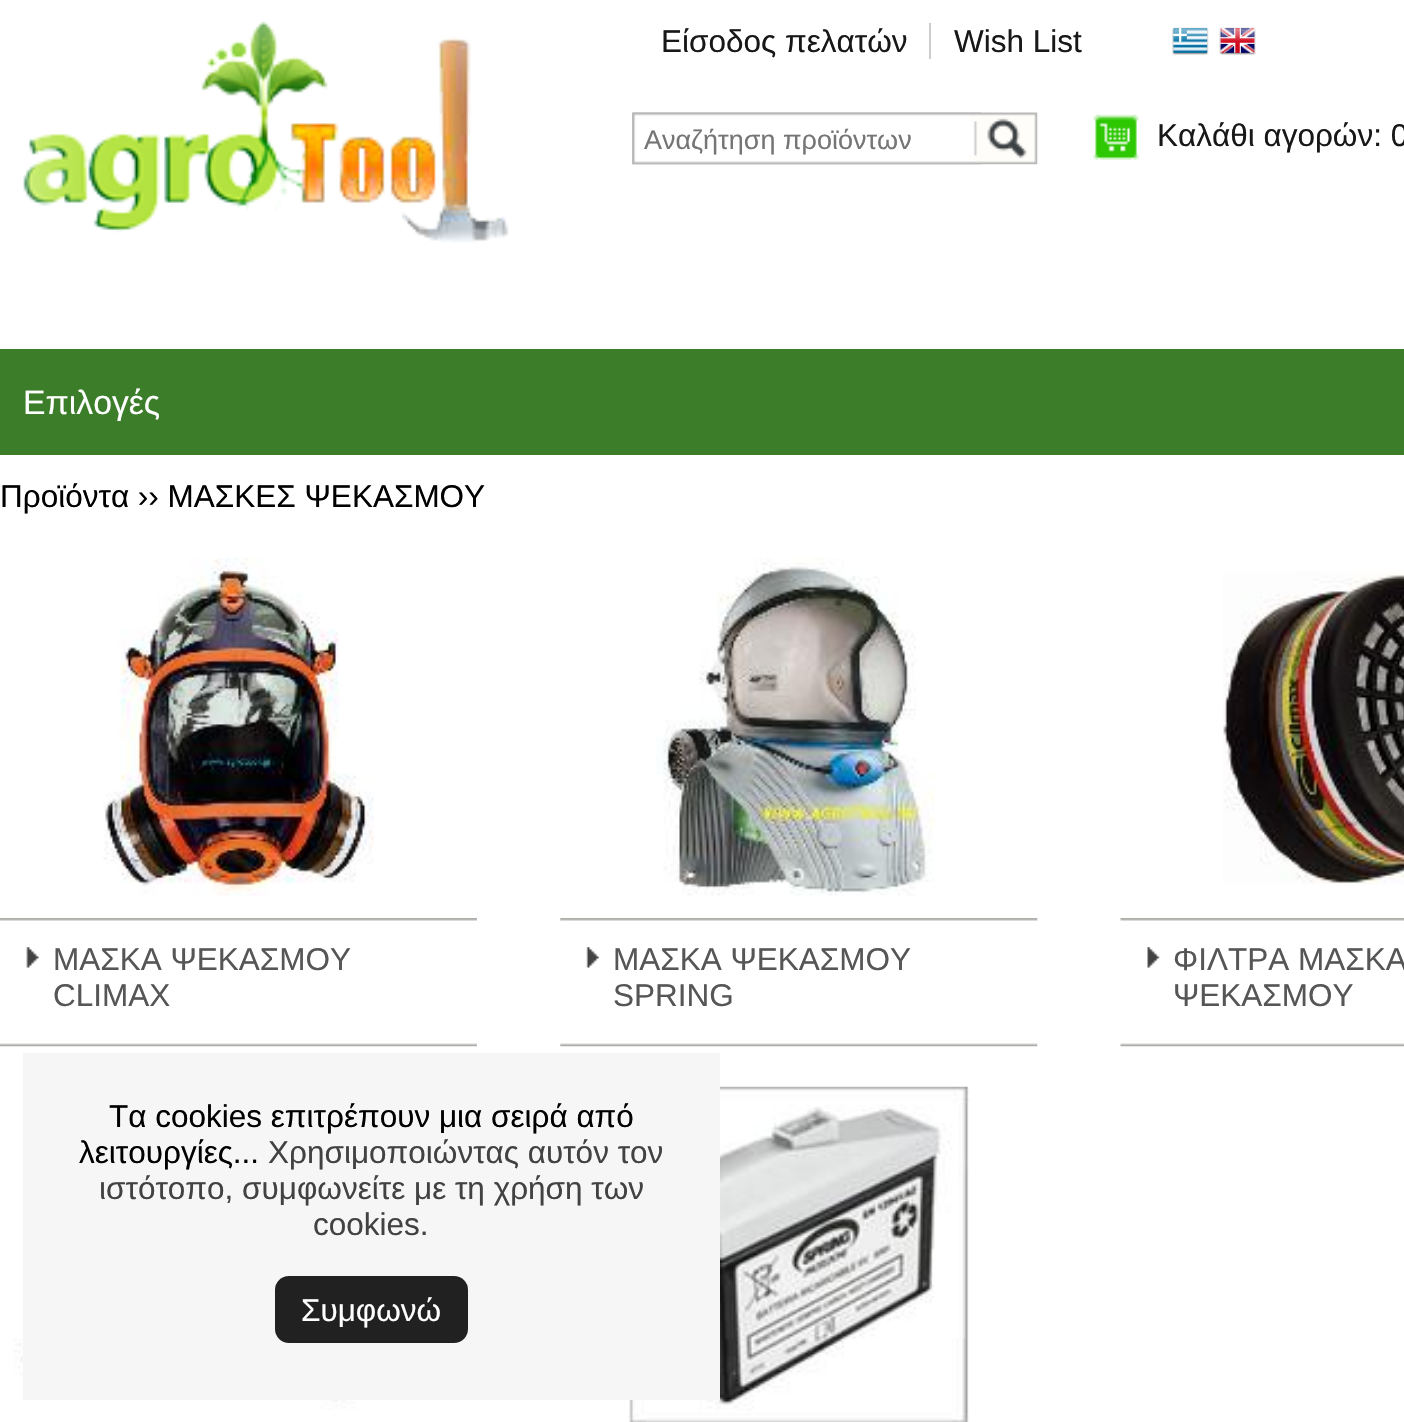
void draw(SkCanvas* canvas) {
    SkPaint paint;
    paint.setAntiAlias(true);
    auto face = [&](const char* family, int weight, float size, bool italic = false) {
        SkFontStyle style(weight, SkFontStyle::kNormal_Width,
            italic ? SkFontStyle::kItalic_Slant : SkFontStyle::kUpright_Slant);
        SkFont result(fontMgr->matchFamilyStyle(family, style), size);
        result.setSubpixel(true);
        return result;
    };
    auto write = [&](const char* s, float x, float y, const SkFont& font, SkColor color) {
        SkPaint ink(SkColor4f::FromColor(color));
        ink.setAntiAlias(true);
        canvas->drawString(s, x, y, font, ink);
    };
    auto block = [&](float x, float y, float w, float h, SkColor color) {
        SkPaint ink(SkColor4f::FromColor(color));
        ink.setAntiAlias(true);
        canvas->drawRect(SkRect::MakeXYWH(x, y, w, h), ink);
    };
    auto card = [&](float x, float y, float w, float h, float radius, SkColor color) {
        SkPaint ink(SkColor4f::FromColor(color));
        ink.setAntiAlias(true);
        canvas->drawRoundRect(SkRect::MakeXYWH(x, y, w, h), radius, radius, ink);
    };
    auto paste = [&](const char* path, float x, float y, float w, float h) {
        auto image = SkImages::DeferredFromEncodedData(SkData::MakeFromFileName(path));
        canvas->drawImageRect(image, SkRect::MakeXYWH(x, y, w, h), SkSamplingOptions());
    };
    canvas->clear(SK_ColorWHITE);
    paste("pic1.png", 23, 21, 486, 222);
    auto kFont1 = face("Liberation Sans", 400, 31.5f);
    write("Είσοδος πελατών", 661, 52, kFont1, SkColorSetRGB(24, 24, 24));
    block(929, 23, 2, 36, SkColorSetRGB(204, 204, 204));
    write("Wish List", 954, 52, kFont1, SkColorSetRGB(24, 24, 24));
    paste("pic2.png", 1172, 27, 37, 28);
    paste("pic3.png", 1219, 27, 37, 28);
    paste("pic4.png", 632, 112, 349, 53);
    paste("pic5.png", 632, 112, 349, 53);
    auto kFont2 = face("Liberation Sans", 400, 27);
    write("Αναζήτηση προϊόντων", 644, 149, kFont2, SkColorSetRGB(117, 117, 117));
    paste("pic6.png", 981, 112, 57, 53);
    paste("pic7.png", 1093, 114, 47, 46);
    write("Καλάθι αγορών: 0", 1157, 146, kFont1, SkColorSetRGB(24, 24, 24));
    block(0, 349, 1404, 106, SkColorSetRGB(60, 125, 41));
    auto kFont3 = face("Liberation Sans", 400, 33.75f);
    write("Επιλογές", 23, 414, kFont3, SK_ColorWHITE);
    write("Προϊόντα ›› ΜΑΣΚΕΣ ΨΕΚΑΣΜΟΥ", 0, 507, kFont1, SK_ColorBLACK);
    paste("pic8.png", 103, 558, 271, 338);
    paste("pic9.png", 0, 918, 477, 129);
    paste("pic10.png", 26, 947, 13, 21);
    write("ΜΑΣΚΑ ΨΕΚΑΣΜΟΥ", 53, 970, kFont1, SkColorSetRGB(86, 86, 86));
    write("CLIMAX", 53, 1006, kFont1, SkColorSetRGB(86, 86, 86));
    paste("pic11.png", 656, 558, 279, 338);
    paste("pic12.png", 560, 918, 478, 129);
    paste("pic13.png", 586, 947, 14, 21);
    write("ΜΑΣΚΑ ΨΕΚΑΣΜΟΥ", 613, 970, kFont1, SkColorSetRGB(86, 86, 86));
    write("SPRING", 613, 1006, kFont1, SkColorSetRGB(86, 86, 86));
    paste("pic14.png", 1223, 571, 181, 314);
    paste("pic15.png", 1120, 918, 284, 129);
    paste("pic16.png", 1147, 947, 13, 21);
    write("ΦΙΛΤΡΑ ΜΑΣΚΑ", 1173, 970, kFont1, SkColorSetRGB(86, 86, 86));
    write("ΨΕΚΑΣΜΟΥ", 1173, 1006, kFont1, SkColorSetRGB(86, 86, 86));
    paste("pic17.png", 13, 1107, 380, 303);
    paste("pic18.png", 628, 1086, 342, 336);
    block(23, 1053, 697, 347, SkColorSetRGB(246, 246, 246));
    write("Τα cookies επιτρέπουν μια σειρά από", 109, 1127, kFont1, SK_ColorBLACK);
    write("λειτουργίες...", 79, 1163, kFont1, SK_ColorBLACK);
    write("Χρησιμοποιώντας αυτόν τον", 268, 1163, kFont1, SkColorSetRGB(66, 66, 66));
    write("ιστότοπο, συμφωνείτε με τη χρήση των", 99, 1199, kFont1, SkColorSetRGB(66, 66, 66));
    write("cookies.", 313, 1235, kFont1, SkColorSetRGB(66, 66, 66));
    card(275, 1276, 193, 67, 14, SkColorSetRGB(33, 33, 33));
    write("Συμφωνώ", 301, 1321, kFont1, SK_ColorWHITE);
}
